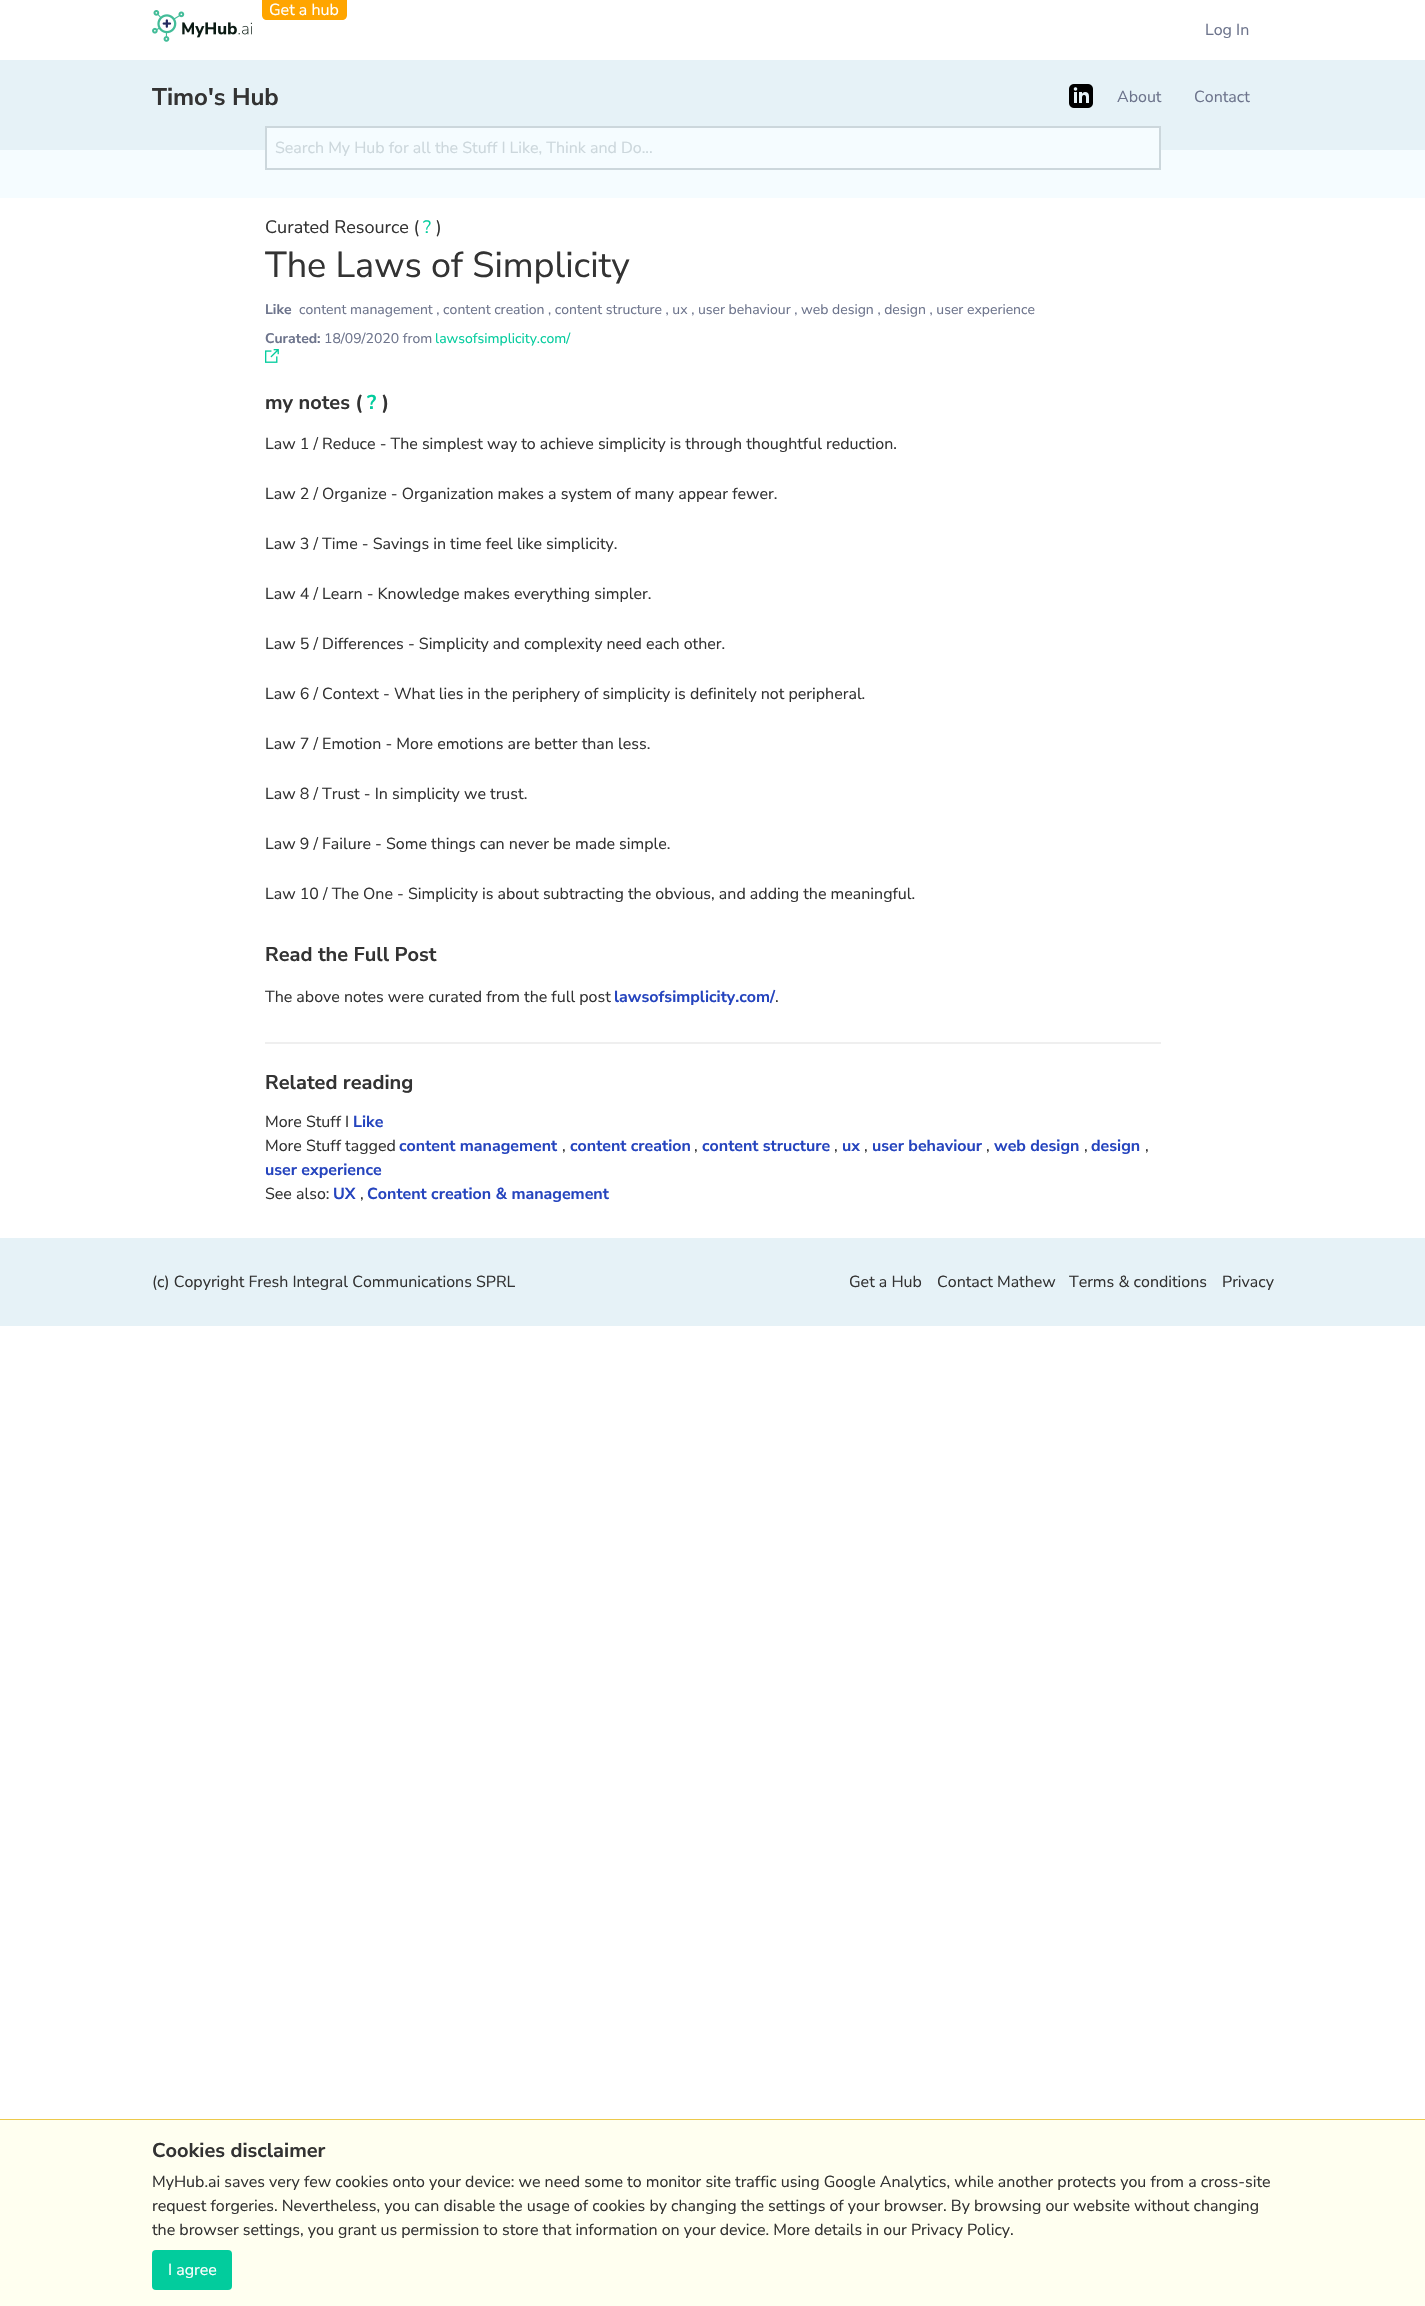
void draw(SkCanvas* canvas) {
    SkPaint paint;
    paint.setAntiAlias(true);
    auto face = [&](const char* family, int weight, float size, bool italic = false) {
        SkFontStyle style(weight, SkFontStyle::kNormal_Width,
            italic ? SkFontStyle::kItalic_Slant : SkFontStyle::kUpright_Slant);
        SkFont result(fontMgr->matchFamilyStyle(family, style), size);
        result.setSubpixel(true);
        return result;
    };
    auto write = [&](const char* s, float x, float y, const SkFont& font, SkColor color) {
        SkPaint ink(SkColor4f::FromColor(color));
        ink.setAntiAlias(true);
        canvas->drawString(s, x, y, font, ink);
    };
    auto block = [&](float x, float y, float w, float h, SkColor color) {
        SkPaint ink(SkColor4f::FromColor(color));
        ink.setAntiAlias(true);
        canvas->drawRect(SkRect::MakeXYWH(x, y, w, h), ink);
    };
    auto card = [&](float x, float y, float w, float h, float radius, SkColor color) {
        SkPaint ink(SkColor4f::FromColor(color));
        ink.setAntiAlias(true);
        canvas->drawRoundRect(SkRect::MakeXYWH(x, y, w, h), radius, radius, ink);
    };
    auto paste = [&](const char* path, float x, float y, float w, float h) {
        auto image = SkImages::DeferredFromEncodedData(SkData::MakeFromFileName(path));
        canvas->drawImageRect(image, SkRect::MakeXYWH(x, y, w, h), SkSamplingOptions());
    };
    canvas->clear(SK_ColorWHITE);
    paste("pic1.png", 152, 10, 100, 32);
    paint.setColor(SkColorSetRGB(255, 165, 0));
    canvas->drawPath(SkPathBuilder().moveTo(262, 0).lineTo(347, 0).lineTo(347, 15).cubicTo(347, 18, 345, 20, 342, 20).lineTo(267, 20).cubicTo(264, 20, 262, 18, 262, 15).close().detach(), paint);
    auto kFont1 = face("Nunito Sans", 400, 16);
    write("Get a hub", 269, 15, kFont1, SK_ColorWHITE);
    write("Log In", 1205, 35, kFont1, SkColorSetRGB(109, 116, 140));
    block(0, 60, 1425, 90, SkColorSetRGB(230, 242, 247));
    canvas->save();
    canvas->clipRect(SkRect::MakeXYWH(152, 79, 126, 36));
    auto kFont2 = face("Nunito Sans", 700, 24);
    write("Timo's Hub", 152, 105, kFont2, SkColorSetRGB(51, 51, 51));
    canvas->restore();
    paste("pic2.png", 1069, 84, 24, 24);
    write("About", 1117, 102, kFont1, SkColorSetRGB(109, 116, 140));
    write("Contact", 1194, 102, kFont1, SkColorSetRGB(109, 116, 140));
    block(0, 150, 1425, 48, SkColorSetRGB(245, 252, 255));
    block(267, 128, 892, 22, SkColorSetRGB(245, 252, 255));
    paint.setStyle(SkPaint::kStroke_Style);
    paint.setStrokeWidth(2);
    paint.setColor(SkColorSetRGB(204, 215, 220));
    canvas->drawRect(SkRect::MakeXYWH(266, 127, 894, 42), paint);
    write("Search My Hub for all the Stuff I Like, Think and Do...", 275, 153, kFont1, SkColorSetRGB(204, 215, 220));
    auto kFont3 = face("Nunito Sans", 400, 18);
    write("Curated Resource (", 265, 233, kFont3, SkColorSetRGB(51, 51, 51));
    write("?", 423, 233, kFont3, SkColorSetRGB(2, 204, 157));
    write(")", 436, 233, kFont3, SkColorSetRGB(51, 51, 51));
    auto kFont4 = face("Nunito Sans", 400, 36);
    write("The Laws of Simplicity", 265, 277, kFont4, SkColorSetRGB(51, 51, 51));
    auto kFont5 = face("Nunito Sans", 700, 14);
    write("Like", 265, 314, kFont5, SkColorSetRGB(109, 116, 140));
    auto kFont6 = face("Nunito Sans", 400, 14);
    write("content management , content creation , content structure , ux , user behaviour , web design , design , user experience", 299, 314, kFont6, SkColorSetRGB(109, 116, 140));
    write("Curated:", 265, 343, kFont5, SkColorSetRGB(109, 116, 140));
    write("18/09/2020 from", 324, 343, kFont6, SkColorSetRGB(109, 116, 140));
    write("lawsofsimplicity.com/", 435, 343, kFont6, SkColorSetRGB(2, 204, 157));
    paste("pic3.png", 265, 349, 14, 14);
    block(265, 1042, 896, 2, SkColorSetRGB(239, 239, 239));
    auto kFont7 = face("Nunito Sans", 700, 20);
    write("my notes (", 265, 409, kFont7, SkColorSetRGB(51, 51, 51));
    write("?", 367, 409, kFont7, SkColorSetRGB(2, 204, 157));
    write(")", 382, 409, kFont7, SkColorSetRGB(51, 51, 51));
    write("Law 1 / Reduce - The simplest way to achieve simplicity is through thoughtful reduction.", 265, 449, kFont1, SkColorSetRGB(51, 51, 51));
    write("Law 2 / Organize - Organization makes a system of many appear fewer.", 265, 499, kFont1, SkColorSetRGB(51, 51, 51));
    write("Law 3 / Time - Savings in time feel like simplicity.", 265, 549, kFont1, SkColorSetRGB(51, 51, 51));
    write("Law 4 / Learn - Knowledge makes everything simpler.", 265, 599, kFont1, SkColorSetRGB(51, 51, 51));
    write("Law 5 / Differences - Simplicity and complexity need each other.", 265, 649, kFont1, SkColorSetRGB(51, 51, 51));
    write("Law 6 / Context - What lies in the periphery of simplicity is definitely not peripheral.", 265, 699, kFont1, SkColorSetRGB(51, 51, 51));
    write("Law 7 / Emotion - More emotions are better than less.", 265, 749, kFont1, SkColorSetRGB(51, 51, 51));
    write("Law 8 / Trust - In simplicity we trust.", 265, 799, kFont1, SkColorSetRGB(51, 51, 51));
    write("Law 9 / Failure - Some things can never be made simple.", 265, 849, kFont1, SkColorSetRGB(51, 51, 51));
    write("Law 10 / The One - Simplicity is about subtracting the obvious, and adding the meaningful.", 265, 899, kFont1, SkColorSetRGB(51, 51, 51));
    write("Read the Full Post", 265, 961, kFont7, SkColorSetRGB(51, 51, 51));
    write("The above notes were curated from the full post", 265, 1002, kFont1, SkColorSetRGB(51, 51, 51));
    auto kFont8 = face("Nunito Sans", 700, 16);
    write("lawsofsimplicity.com/", 614, 1002, kFont8, SkColorSetRGB(37, 68, 190));
    write(".", 775, 1002, kFont1, SkColorSetRGB(51, 51, 51));
    write("Related reading", 265, 1089, kFont7, SkColorSetRGB(51, 51, 51));
    write("More Stuff I", 265, 1127, kFont1, SkColorSetRGB(51, 51, 51));
    write("Like", 353, 1127, kFont8, SkColorSetRGB(37, 68, 190));
    write("More Stuff tagged", 265, 1151, kFont1, SkColorSetRGB(51, 51, 51));
    write("content management", 399, 1151, kFont8, SkColorSetRGB(37, 68, 190));
    write(",", 562, 1151, kFont1, SkColorSetRGB(51, 51, 51));
    write("content creation", 570, 1151, kFont8, SkColorSetRGB(37, 68, 190));
    write(",", 694, 1151, kFont1, SkColorSetRGB(51, 51, 51));
    write("content structure", 702, 1151, kFont8, SkColorSetRGB(37, 68, 190));
    write(",", 834, 1151, kFont1, SkColorSetRGB(51, 51, 51));
    write("ux", 842, 1151, kFont8, SkColorSetRGB(37, 68, 190));
    write(",", 864, 1151, kFont1, SkColorSetRGB(51, 51, 51));
    write("user behaviour", 872, 1151, kFont8, SkColorSetRGB(37, 68, 190));
    write(",", 986, 1151, kFont1, SkColorSetRGB(51, 51, 51));
    write("web design", 994, 1151, kFont8, SkColorSetRGB(37, 68, 190));
    write(",", 1084, 1151, kFont1, SkColorSetRGB(51, 51, 51));
    write("design", 1091, 1151, kFont8, SkColorSetRGB(37, 68, 190));
    write(",", 1145, 1151, kFont1, SkColorSetRGB(51, 51, 51));
    write("user experience", 265, 1175, kFont8, SkColorSetRGB(37, 68, 190));
    write("See also:", 265, 1199, kFont1, SkColorSetRGB(51, 51, 51));
    write("UX", 333, 1199, kFont8, SkColorSetRGB(37, 68, 190));
    write(",", 360, 1199, kFont1, SkColorSetRGB(51, 51, 51));
    write("Content creation & management", 367, 1199, kFont8, SkColorSetRGB(37, 68, 190));
    block(0, 1238, 1425, 88, SkColorSetRGB(230, 242, 247));
    write("(c) Copyright Fresh Integral Communications SPRL", 152, 1287, kFont1, SkColorSetRGB(51, 51, 51));
    write("Get a Hub", 849, 1287, kFont1, SkColorSetRGB(51, 51, 51));
    write("Contact Mathew", 937, 1287, kFont1, SkColorSetRGB(51, 51, 51));
    write("Terms & conditions", 1069, 1287, kFont1, SkColorSetRGB(51, 51, 51));
    write("Privacy", 1222, 1287, kFont1, SkColorSetRGB(51, 51, 51));
    block(0, 2120, 1425, 186, SkColorSetRGB(255, 255, 240));
    block(0, 2119, 1425, 1, SkColorSetRGB(236, 201, 75));
    write("Cookies disclaimer", 152, 2157, kFont7, SkColorSetRGB(51, 51, 51));
    write("MyHub.ai saves very few cookies onto your device: we need some to monitor site traffic using Google Analytics, while another protects you from a cross-site", 152, 2187, kFont1, SkColorSetRGB(51, 51, 51));
    write("request forgeries. Nevertheless, you can disable the usage of cookies by changing the settings of your browser. By browsing our website without changing", 152, 2211, kFont1, SkColorSetRGB(51, 51, 51));
    write("the browser settings, you grant us permission to store that information on your device. More details in our Privacy Policy.", 152, 2235, kFont1, SkColorSetRGB(51, 51, 51));
    card(152, 2250, 80, 40, 4, SkColorSetRGB(2, 204, 157));
    write("I agree", 168, 2275, kFont1, SK_ColorWHITE);
}
